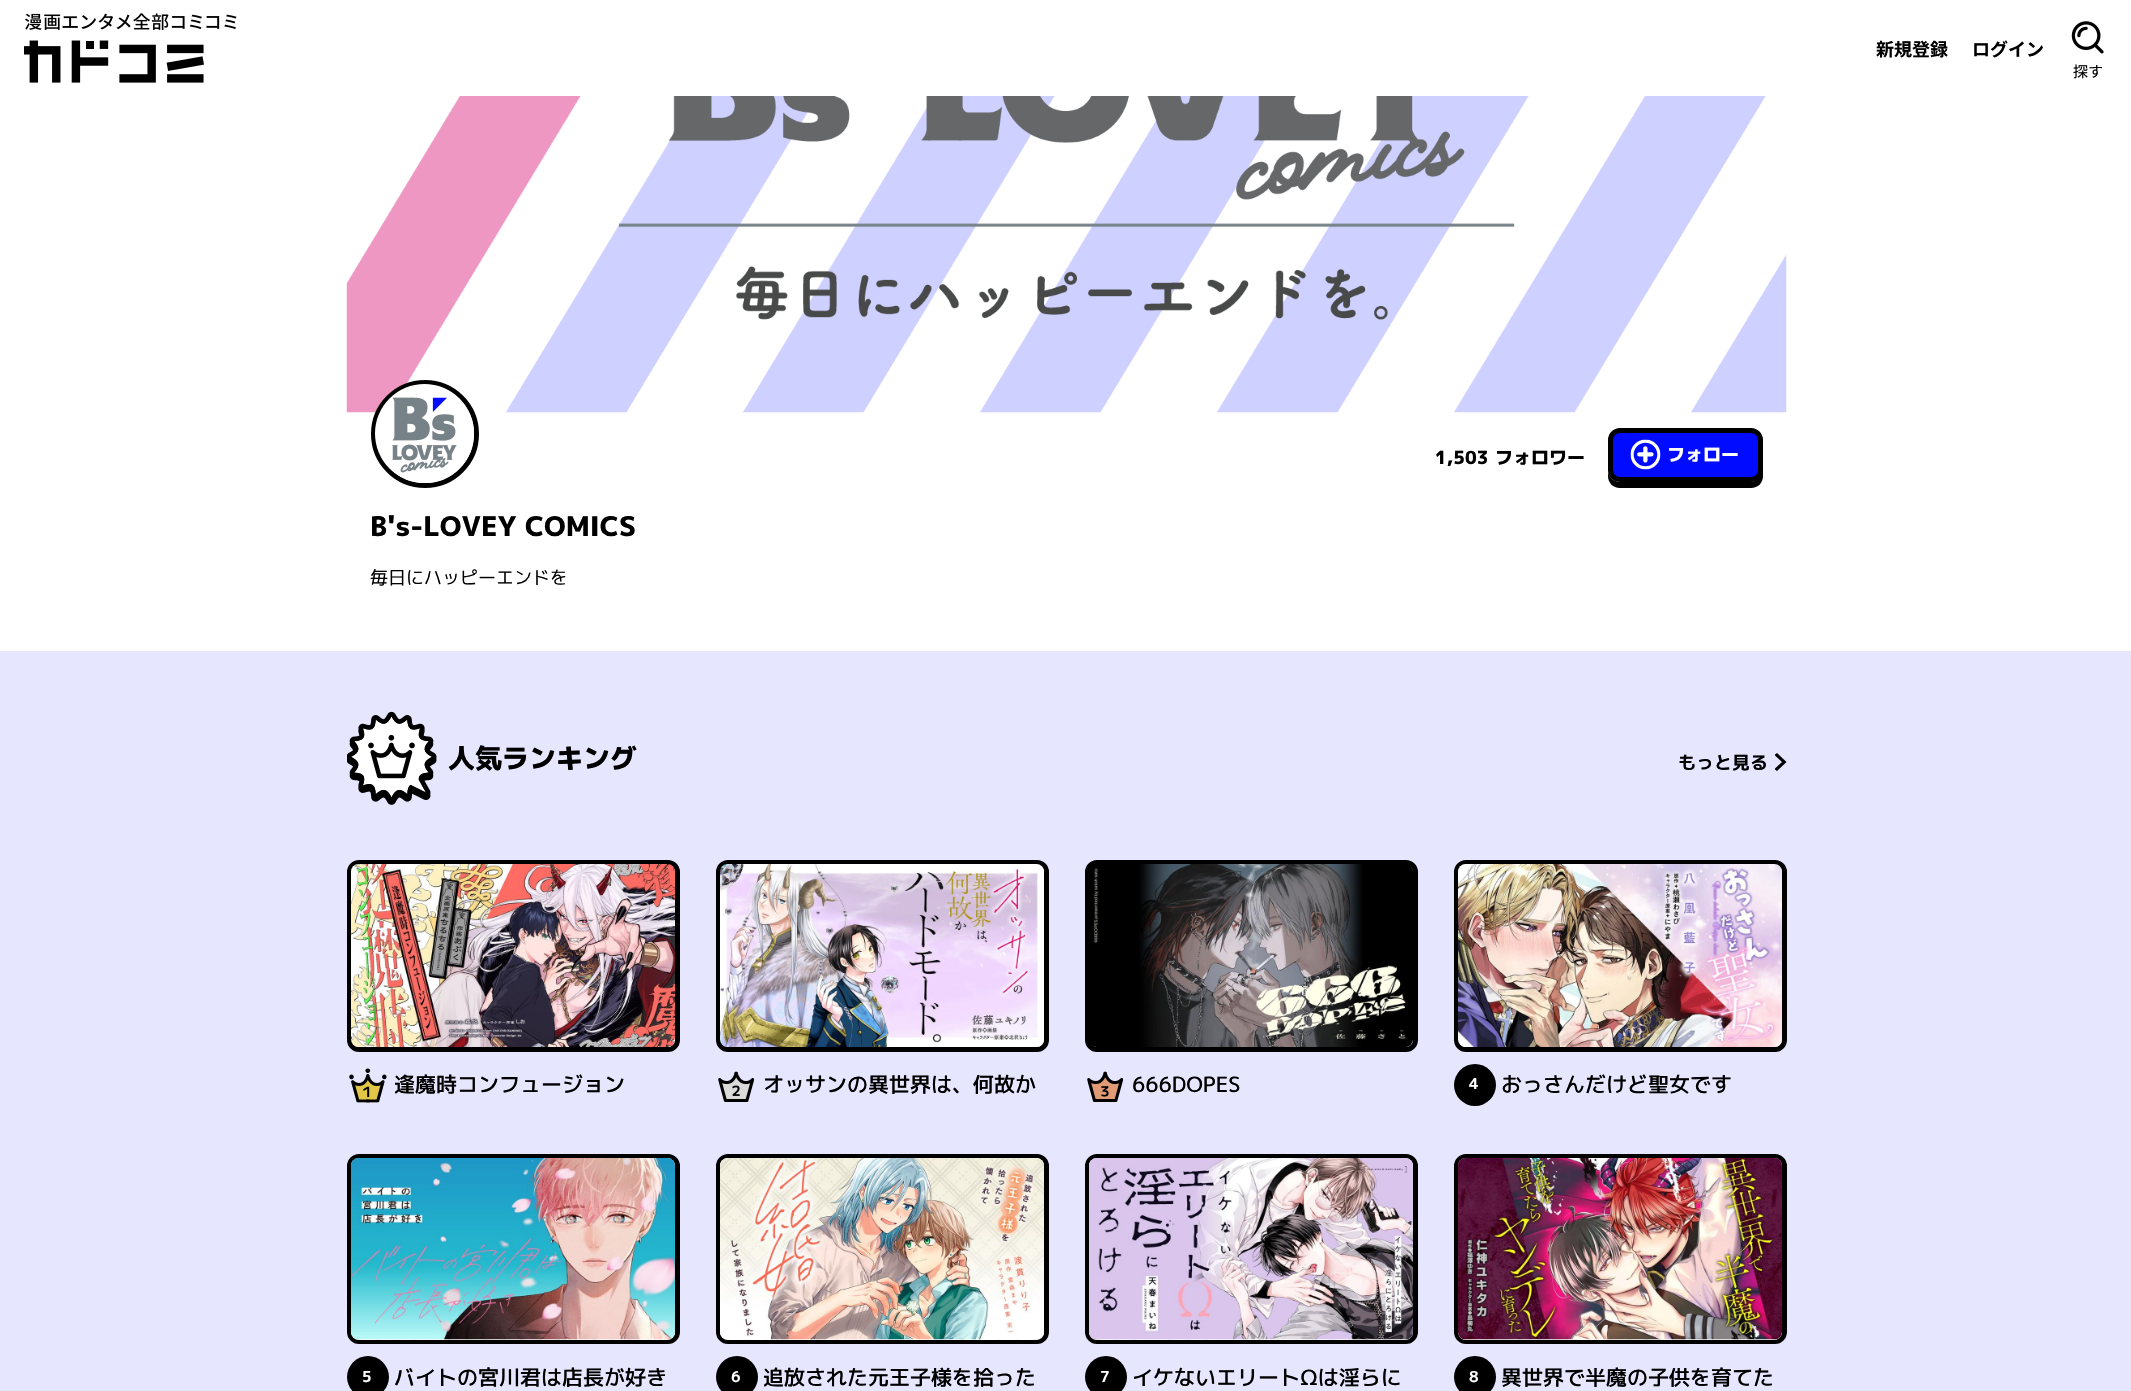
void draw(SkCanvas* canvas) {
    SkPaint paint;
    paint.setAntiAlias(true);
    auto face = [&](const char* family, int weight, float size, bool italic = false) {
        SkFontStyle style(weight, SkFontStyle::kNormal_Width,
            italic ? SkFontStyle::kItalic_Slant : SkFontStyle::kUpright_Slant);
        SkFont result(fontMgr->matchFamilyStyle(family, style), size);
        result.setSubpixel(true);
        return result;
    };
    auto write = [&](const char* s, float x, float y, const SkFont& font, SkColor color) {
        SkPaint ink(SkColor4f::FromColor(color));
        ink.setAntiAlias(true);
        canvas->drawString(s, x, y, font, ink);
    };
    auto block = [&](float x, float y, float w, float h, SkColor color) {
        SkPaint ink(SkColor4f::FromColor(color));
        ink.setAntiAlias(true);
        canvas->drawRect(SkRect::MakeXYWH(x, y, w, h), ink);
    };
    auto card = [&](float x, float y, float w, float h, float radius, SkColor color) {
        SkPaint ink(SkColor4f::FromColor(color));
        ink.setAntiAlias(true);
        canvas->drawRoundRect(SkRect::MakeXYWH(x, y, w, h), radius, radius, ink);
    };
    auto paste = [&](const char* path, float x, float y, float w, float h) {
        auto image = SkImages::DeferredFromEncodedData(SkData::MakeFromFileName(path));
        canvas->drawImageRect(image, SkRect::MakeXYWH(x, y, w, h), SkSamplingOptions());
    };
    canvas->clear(SK_ColorWHITE);
    paste("pic1.png", 25, 13, 212, 17);
    paste("pic2.png", 24, 40, 180, 43);
    auto kFont1 = face("Noto Sans JP", 700, 18);
    write("新規登録", 1876, 56, kFont1, SK_ColorBLACK);
    write("ログイン", 1972, 56, kFont1, SK_ColorBLACK);
    paste("pic3.png", 2071, 21, 33, 33);
    auto kFont2 = face("Noto Sans JP", 400, 15);
    write("探す", 2073, 77, kFont2, SK_ColorBLACK);
    paste("pic4.png", 346, 96, 1441, 317);
    paint.setStyle(SkPaint::kStroke_Style);
    paint.setStrokeWidth(5);
    paint.setColor(SK_ColorBLACK);
    canvas->drawCircle(425, 434, 51.5f, paint);
    paste("pic5.png", 375, 384, 99, 99);
    auto kFont3 = face("M PLUS 1p", 800, 18);
    write("1,503", 1435, 464, kFont3, SK_ColorBLACK);
    write("フォロワー", 1495, 464, kFont3, SK_ColorBLACK);
    paint.setStyle(SkPaint::kFill_Style);
    canvas->drawPath(SkPathBuilder().moveTo(1608, 470).lineTo(1608, 476).cubicTo(1608, 483, 1613, 488, 1620, 488).lineTo(1751, 488).cubicTo(1758, 488, 1763, 483, 1763, 476).lineTo(1763, 446).lineTo(1762, 443).lineTo(1762, 470).cubicTo(1762, 476, 1757, 482, 1750, 482).lineTo(1620, 482).cubicTo(1613, 482, 1608, 476, 1608, 470).close().detach(), paint);
    paint.setColor(SkColorSetRGB(1, 11, 255));
    canvas->drawRoundRect(SkRect::MakeXYWH(1610.5f, 430.5f, 150, 49), 9.5f, 9.5f, paint);
    paint.setStyle(SkPaint::kStroke_Style);
    paint.setColor(SK_ColorBLACK);
    canvas->drawRoundRect(SkRect::MakeXYWH(1610.5f, 430.5f, 150, 49), 9.5f, 9.5f, paint);
    paste("pic6.png", 1630, 439, 31, 31);
    write("フォロー", 1667, 461, kFont3, SK_ColorWHITE);
    auto kFont4 = face("M PLUS 1p", 800, 27);
    write("B's-LOVEY COMICS", 370, 536, kFont4, SK_ColorBLACK);
    auto kFont5 = face("M PLUS 1p", 400, 18);
    write("毎日にハッピーエンドを", 370, 584, kFont5, SK_ColorBLACK);
    block(0, 651, 2131, 740, SkColorSetRGB(230, 231, 255));
    paste("pic7.png", 347, 711, 90, 94);
    write("人気ランキング", 448, 768, kFont4, SK_ColorBLACK);
    auto kFont6 = face("M PLUS 1p", 700, 18);
    write("もっと見る", 1678, 769, kFont6, SK_ColorBLACK);
    canvas->save();
    canvas->clipRect(SkRect::MakeXYWH(1775, 753, 12, 18));
    paint.setStyle(SkPaint::kFill_Style);
    canvas->drawPath(SkPathBuilder().moveTo(1774.5f, 769).lineTo(1782, 762).lineTo(1774.5f, 755).lineTo(1777, 753).lineTo(1786.5f, 762).lineTo(1777, 771).close().detach(), paint);
    canvas->restore();
    paint.setStyle(SkPaint::kStroke_Style);
    canvas->drawRoundRect(SkRect::MakeXYWH(349.5f, 862.5f, 328, 187), 9.5f, 9.5f, paint);
    paste("pic8.png", 351, 871, 324, 1);
    paste("pic9.png", 351, 864, 324, 183);
    paste("pic10.png", 349, 1068, 38, 35);
    canvas->save();
    canvas->clipRect(SkRect::MakeXYWH(395, 1068, 285, 32));
    auto kFont7 = face("M PLUS 1p", 500, 21);
    write("逢魔時コンフュージョン", 394, 1092, kFont7, SK_ColorBLACK);
    canvas->restore();
    canvas->drawRoundRect(SkRect::MakeXYWH(718.5f, 862.5f, 328, 187), 9.5f, 9.5f, paint);
    paste("pic8.png", 720, 871, 324, 1);
    paste("pic11.png", 720, 864, 324, 183);
    paste("pic12.png", 718, 1071, 37, 31);
    write("オッサンの異世界は、何故か", 763, 1092, kFont7, SK_ColorBLACK);
    canvas->drawRoundRect(SkRect::MakeXYWH(1087.5f, 862.5f, 328, 187), 9.5f, 9.5f, paint);
    paste("pic8.png", 1089, 871, 324, 1);
    paste("pic13.png", 1089, 864, 324, 183);
    paste("pic14.png", 1087, 1071, 37, 31);
    write("666DOPES", 1132, 1092, kFont7, SK_ColorBLACK);
    canvas->drawRoundRect(SkRect::MakeXYWH(1456.5f, 862.5f, 328, 187), 9.5f, 9.5f, paint);
    paste("pic8.png", 1458, 871, 324, 1);
    paste("pic15.png", 1458, 864, 324, 183);
    paint.setStyle(SkPaint::kFill_Style);
    canvas->drawCircle(1475, 1085, 21, paint);
    auto kFont8 = face("M PLUS 1p", 700, 15);
    write("4", 1469, 1089, kFont8, SK_ColorWHITE);
    write("おっさんだけど聖女です", 1501, 1092, kFont7, SK_ColorBLACK);
    paint.setStyle(SkPaint::kStroke_Style);
    canvas->drawRoundRect(SkRect::MakeXYWH(349.5f, 1156.5f, 328, 185), 9.5f, 9.5f, paint);
    card(351, 1158, 324, 182, 8, SK_ColorWHITE);
    paste("pic16.png", 351, 1165, 324, 175);
    paste("pic17.png", 351, 1158, 324, 182);
    paint.setStyle(SkPaint::kFill_Style);
    canvas->drawCircle(368, 1377, 21, paint);
    write("5", 362, 1382, kFont8, SK_ColorWHITE);
    write("バイトの宮川君は店長が好き", 394, 1385, kFont7, SK_ColorBLACK);
    paint.setStyle(SkPaint::kStroke_Style);
    canvas->drawRoundRect(SkRect::MakeXYWH(718.5f, 1156.5f, 328, 185), 9.5f, 9.5f, paint);
    card(720, 1158, 324, 182, 8, SK_ColorWHITE);
    paste("pic16.png", 720, 1165, 324, 175);
    paste("pic18.png", 720, 1158, 324, 182);
    paint.setStyle(SkPaint::kFill_Style);
    canvas->drawCircle(737, 1377, 21, paint);
    write("6", 731, 1382, kFont8, SK_ColorWHITE);
    canvas->save();
    canvas->clipRect(SkRect::MakeXYWH(764, 1362, 285, 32));
    write("追放された元王子様を拾った", 763, 1385, kFont7, SK_ColorBLACK);
    canvas->restore();
    paint.setStyle(SkPaint::kStroke_Style);
    canvas->drawRoundRect(SkRect::MakeXYWH(1087.5f, 1156.5f, 328, 185), 9.5f, 9.5f, paint);
    card(1089, 1158, 324, 182, 8, SK_ColorWHITE);
    paste("pic16.png", 1089, 1165, 324, 175);
    paste("pic19.png", 1089, 1158, 324, 182);
    paint.setStyle(SkPaint::kFill_Style);
    canvas->drawCircle(1106, 1377, 21, paint);
    write("7", 1100, 1382, kFont8, SK_ColorWHITE);
    write("イケないエリートΩは淫らに", 1132, 1385, kFont7, SK_ColorBLACK);
    paint.setStyle(SkPaint::kStroke_Style);
    canvas->drawRoundRect(SkRect::MakeXYWH(1456.5f, 1156.5f, 328, 185), 9.5f, 9.5f, paint);
    card(1458, 1158, 324, 182, 8, SK_ColorWHITE);
    paste("pic16.png", 1458, 1165, 324, 175);
    paste("pic20.png", 1458, 1158, 324, 182);
    paint.setStyle(SkPaint::kFill_Style);
    canvas->drawCircle(1475, 1377, 21, paint);
    write("8", 1469, 1382, kFont8, SK_ColorWHITE);
    write("異世界で半魔の子供を育てた", 1501, 1385, kFont7, SK_ColorBLACK);
}
